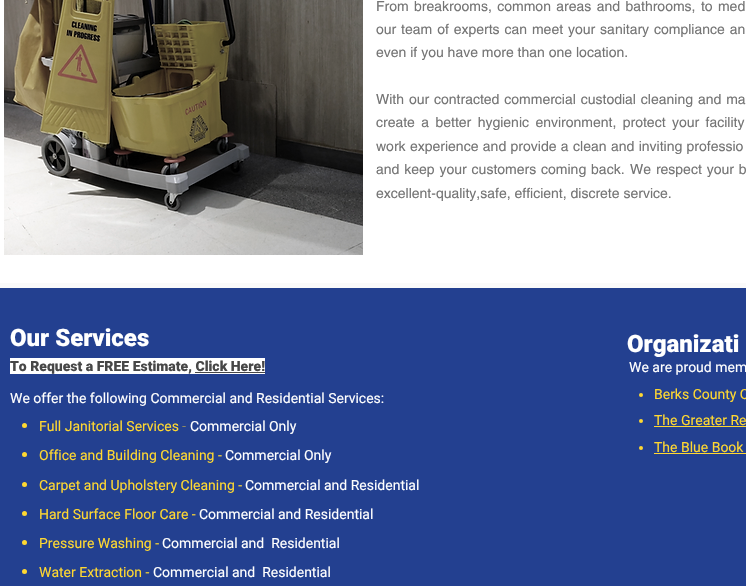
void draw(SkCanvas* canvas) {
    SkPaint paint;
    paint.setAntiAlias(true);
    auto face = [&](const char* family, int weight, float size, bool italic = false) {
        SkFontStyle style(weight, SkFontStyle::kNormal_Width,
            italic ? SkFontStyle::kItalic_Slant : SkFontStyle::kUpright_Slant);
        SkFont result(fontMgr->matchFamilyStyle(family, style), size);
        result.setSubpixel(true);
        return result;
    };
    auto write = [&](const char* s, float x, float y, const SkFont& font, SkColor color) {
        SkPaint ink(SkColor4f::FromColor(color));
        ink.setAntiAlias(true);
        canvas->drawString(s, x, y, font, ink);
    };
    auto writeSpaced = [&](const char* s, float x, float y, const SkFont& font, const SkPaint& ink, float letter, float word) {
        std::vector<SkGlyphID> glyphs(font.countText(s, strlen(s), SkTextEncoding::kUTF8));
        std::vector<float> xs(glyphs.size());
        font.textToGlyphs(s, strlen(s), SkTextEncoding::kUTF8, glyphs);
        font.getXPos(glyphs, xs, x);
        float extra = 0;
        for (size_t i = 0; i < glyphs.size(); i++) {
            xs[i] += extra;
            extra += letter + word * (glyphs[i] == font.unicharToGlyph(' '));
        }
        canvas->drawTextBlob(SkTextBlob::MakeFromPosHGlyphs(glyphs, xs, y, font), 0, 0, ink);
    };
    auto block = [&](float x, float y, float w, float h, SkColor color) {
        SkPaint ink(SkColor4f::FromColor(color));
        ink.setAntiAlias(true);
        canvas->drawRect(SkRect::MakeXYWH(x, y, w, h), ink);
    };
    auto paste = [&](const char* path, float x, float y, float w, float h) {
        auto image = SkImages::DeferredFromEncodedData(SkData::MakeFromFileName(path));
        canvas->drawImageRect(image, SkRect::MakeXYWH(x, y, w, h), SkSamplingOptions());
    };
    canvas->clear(SK_ColorWHITE);
    paste("pic1.png", 4, 0, 359, 255);
    auto kFont1 = face("helvetica", 400, 14);
    paint.setColor(SkColorSetRGB(117, 117, 117));
    writeSpaced("From breakrooms, common areas and bathrooms, to med", 376, 11, kFont1, paint, 0, 1.5f);
    writeSpaced("our team of experts can meet your sanitary compliance an", 376, 34, kFont1, paint, 0, 1);
    write("even if you have more than one location.", 376, 57, kFont1, SkColorSetRGB(117, 117, 117));
    writeSpaced("With our contracted commercial custodial cleaning and ma", 376, 104, kFont1, paint, 0, 1);
    writeSpaced("create a better hygienic environment, protect your facility", 376, 127, kFont1, paint, 0, 2.5f);
    writeSpaced("work experience and provide a clean and inviting professio", 376, 151, kFont1, paint, 0, 0.5f);
    writeSpaced("and keep your customers coming back.", 376, 174, kFont1, paint, 0, 1);
    writeSpaced("We respect your b", 630, 174, kFont1, paint, 0, 1);
    write("excellent-quality,safe, efficient, discrete service.", 376, 198, kFont1, SkColorSetRGB(117, 117, 117));
    block(0, 283, 746, 5, SkColorSetRGB(250, 250, 250));
    block(0, 288, 746, 298, SkColorSetRGB(35, 64, 144));
    auto kFont2 = face("Roboto", 900, 24);
    write("Our Services", 10, 346, kFont2, SK_ColorWHITE);
    write("Organizati", 627, 352, kFont2, SK_ColorWHITE);
    block(10, 358, 255, 16, SK_ColorWHITE);
    auto kFont3 = face("Roboto", 900, 14);
    write("To Request a FREE Estimate, Click Here!", 10, 371, kFont3, SkColorSetRGB(71, 71, 71));
    block(195, 372, 70, 1, SkColorSetRGB(71, 71, 71));
    auto kFont4 = face("Roboto", 400, 14);
    write("We are proud mem", 629, 372, kFont4, SK_ColorWHITE);
    paint.setColor(SkColorSetRGB(255, 216, 49));
    canvas->drawCircle(641, 395, 2, paint);
    write("Berks County C", 654, 399, kFont4, SkColorSetRGB(255, 216, 49));
    canvas->drawCircle(641, 421, 2, paint);
    write("The Greater Re", 654, 425, kFont4, SkColorSetRGB(255, 216, 49));
    block(654, 426, 92, 1, SkColorSetRGB(255, 216, 49));
    canvas->drawCircle(641, 448, 2, paint);
    write("The Blue Book", 654, 452, kFont4, SkColorSetRGB(255, 216, 49));
    block(654, 453, 92, 1, SkColorSetRGB(255, 216, 49));
    write("We offer the following Commercial and Residential Services:", 10, 403, kFont4, SK_ColorWHITE);
    canvas->drawCircle(24.5f, 425.5f, 2.5f, paint);
    write("Full Janitorial Services", 39, 431, kFont4, SkColorSetRGB(255, 216, 49));
    auto kFont5 = face("Roboto", 100, 14);
    write("-", 182, 431, kFont5, SkColorSetRGB(255, 216, 49));
    write("Commercial Only", 190, 431, kFont4, SK_ColorWHITE);
    canvas->drawCircle(24.5f, 454.5f, 2.5f, paint);
    write("Office and Building Cleaning -", 39, 460, kFont4, SkColorSetRGB(255, 216, 49));
    write("Commercial Only", 225, 460, kFont4, SK_ColorWHITE);
    canvas->drawCircle(24.5f, 484.5f, 2.5f, paint);
    write("Carpet and Upholstery Cleaning -", 39, 490, kFont4, SkColorSetRGB(255, 216, 49));
    write("Commercial and Residential", 245, 490, kFont4, SK_ColorWHITE);
    canvas->drawCircle(24.5f, 513.5f, 2.5f, paint);
    write("Hard Surface Floor Care -", 39, 519, kFont4, SkColorSetRGB(255, 216, 49));
    write("Commercial and Residential", 199, 519, kFont4, SK_ColorWHITE);
    canvas->drawCircle(24.5f, 542.5f, 2.5f, paint);
    write("Pressure Washing -", 39, 548, kFont4, SkColorSetRGB(255, 216, 49));
    write("Commercial and  Residential", 162, 548, kFont4, SK_ColorWHITE);
    canvas->drawCircle(24.5f, 571.5f, 2.5f, paint);
    write("Water Extraction -", 39, 577, kFont4, SkColorSetRGB(255, 216, 49));
    write("Commercial and  Residential", 153, 577, kFont4, SK_ColorWHITE);
}
